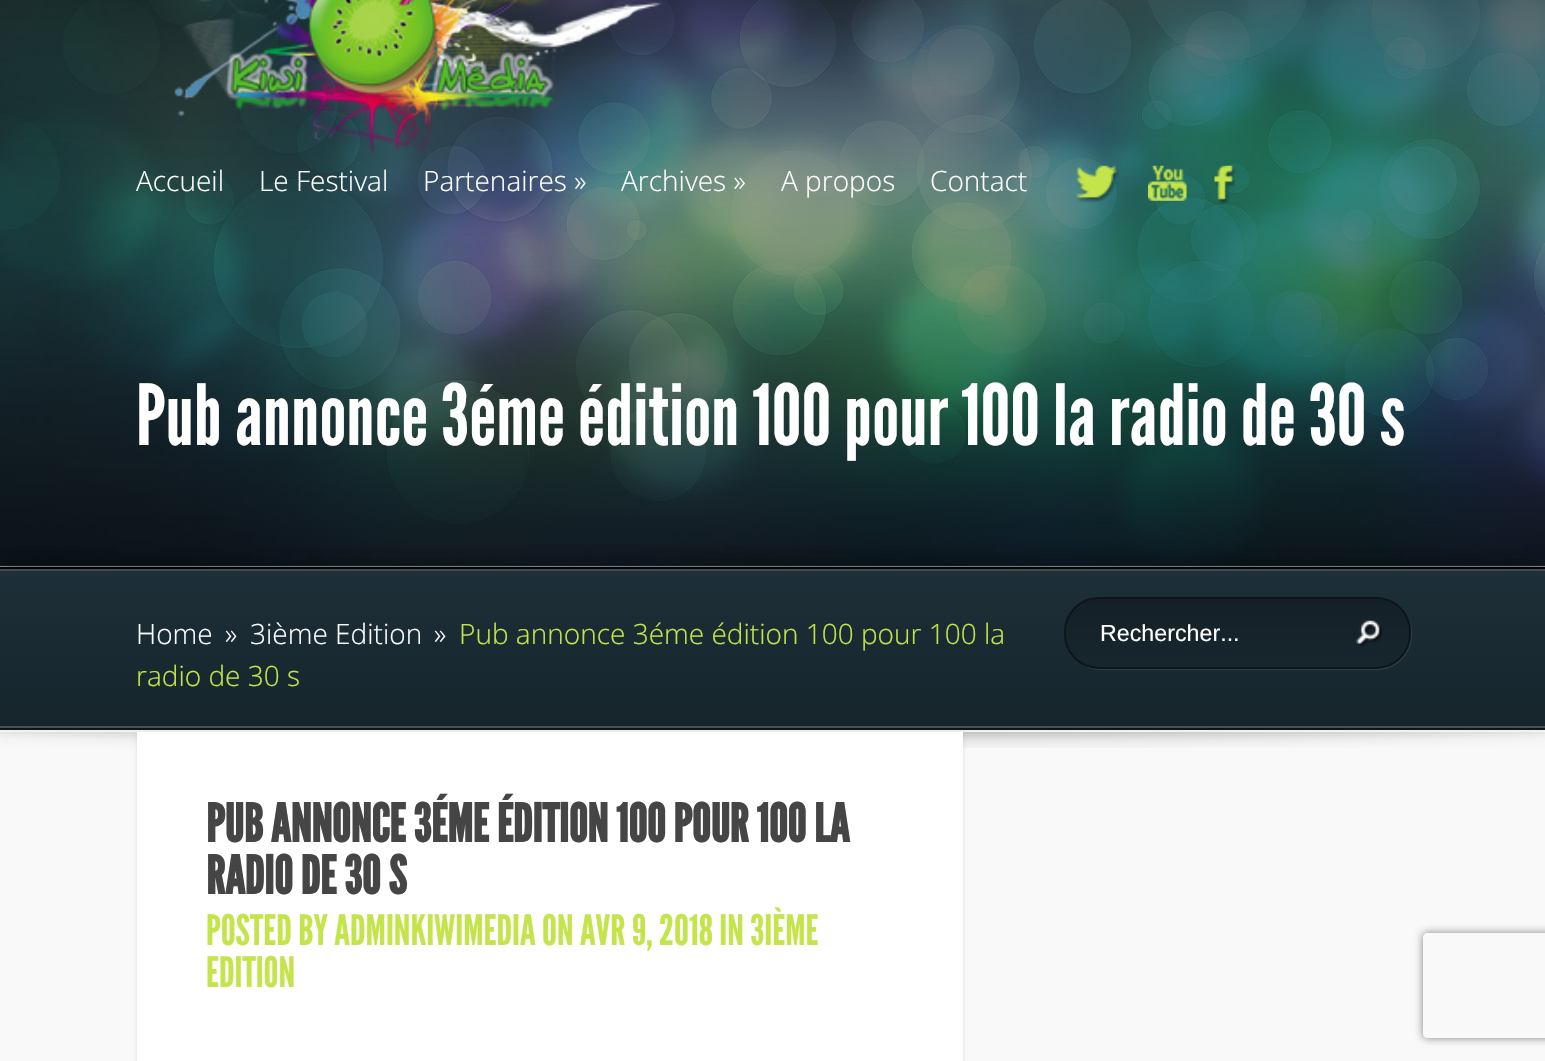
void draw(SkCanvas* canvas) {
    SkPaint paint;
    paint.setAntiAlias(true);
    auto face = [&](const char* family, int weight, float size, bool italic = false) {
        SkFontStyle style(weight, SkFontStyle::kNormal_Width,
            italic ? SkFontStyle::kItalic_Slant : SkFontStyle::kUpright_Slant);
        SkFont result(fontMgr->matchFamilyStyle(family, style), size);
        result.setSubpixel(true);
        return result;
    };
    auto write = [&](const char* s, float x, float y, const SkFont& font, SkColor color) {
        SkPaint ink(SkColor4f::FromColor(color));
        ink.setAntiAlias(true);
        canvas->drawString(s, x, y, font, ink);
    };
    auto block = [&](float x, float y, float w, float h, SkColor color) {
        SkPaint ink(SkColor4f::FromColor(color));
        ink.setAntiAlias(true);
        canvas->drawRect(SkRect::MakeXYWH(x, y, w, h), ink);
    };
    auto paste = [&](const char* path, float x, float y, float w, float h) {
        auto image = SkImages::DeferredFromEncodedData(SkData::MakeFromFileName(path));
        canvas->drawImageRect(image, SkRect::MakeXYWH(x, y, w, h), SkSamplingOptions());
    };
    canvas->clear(SkColorSetRGB(249, 249, 249));
    paste("pic1.png", 0, 0, 1545, 567);
    paste("pic2.png", 174, 0, 488, 154);
    auto kFont1 = face("Open Sans", 300, 28);
    write("Accueil", 136, 191, kFont1, SK_ColorWHITE);
    write("Le Festival", 259, 191, kFont1, SK_ColorWHITE);
    write("Partenaires »", 423, 191, kFont1, SK_ColorWHITE);
    write("Archives »", 621, 191, kFont1, SK_ColorWHITE);
    write("A propos", 781, 191, kFont1, SK_ColorWHITE);
    write("Contact", 930, 191, kFont1, SK_ColorWHITE);
    paste("pic3.png", 1076, 165, 43, 38);
    paste("pic4.png", 1148, 165, 39, 36);
    paste("pic5.png", 1214, 165, 22, 39);
    auto kFont2 = face("League Gothic", 400, 84);
    write("Pub annonce 3éme édition 100 pour 100 la radio de 30 s", 136, 445, kFont2, SK_ColorWHITE);
    paste("pic7.png", 0, 732, 1545, 16);
    paint.setColor(SkColorSetARGB(51, 0, 0, 0));
    paint.setMaskFilter(SkMaskFilter::MakeBlur(kNormal_SkBlurStyle, 9));
    canvas->drawRect(SkRect::MakeXYWH(0, 558, 1545, 163), paint);
    paint.setMaskFilter(nullptr);
    {
        const SkColor colors[] = {SkColorSetRGB(29, 47, 56), SkColorSetRGB(22, 37, 44)};
        const float stops[] = {0, 1};
        const SkPoint ends[] = {{773, 569}, {773, 728}};
        paint.setShader(SkGradientShader::MakeLinear(ends, colors, stops, 2, SkTileMode::kClamp));
        paint.setAlpha(255);
    }
    canvas->drawRect(SkRect::MakeXYWH(0, 571, 1545, 155), paint);
    block(0, 569, 1545, 2, SkColorSetRGB(63, 78, 86));
    block(0, 726, 1545, 2, SkColorSetRGB(69, 81, 86));
    block(0, 567, 1545, 2, SK_ColorBLACK);
    block(0, 728, 1545, 2, SkColorSetRGB(13, 21, 27));
    write("Home", 136, 644, kFont1, SK_ColorWHITE);
    write("»", 225, 644, kFont1, SK_ColorWHITE);
    write("3ième Edition", 250, 644, kFont1, SK_ColorWHITE);
    write("»", 434, 644, kFont1, SK_ColorWHITE);
    write("Pub annonce 3éme édition 100 pour 100 la", 459, 644, kFont1, SkColorSetRGB(195, 229, 75));
    write("radio de 30 s", 136, 686, kFont1, SkColorSetRGB(195, 229, 75));
    paint.setShader(nullptr);
    paint.setColor(SkColorSetARGB(26, 255, 255, 255));
    canvas->drawPath(SkPathBuilder().moveTo(1079, 662).cubicTo(1085, 667, 1093, 670, 1101, 670).lineTo(1377, 670).cubicTo(1396, 670, 1412, 654, 1412, 635).lineTo(1412, 634).cubicTo(1412, 626, 1410, 619, 1405, 613).cubicTo(1409, 619, 1410, 625, 1410, 632).lineTo(1410, 634).cubicTo(1410, 653, 1395, 668, 1376, 668).lineTo(1099, 668).cubicTo(1092, 668, 1085, 666, 1079, 662).close().detach(), paint);
    canvas->save();
    canvas->clipPath(SkPathBuilder().moveTo(1099, 597).lineTo(1376, 597).cubicTo(1395.5f, 597, 1411, 612.5f, 1411, 632).lineTo(1411, 634).cubicTo(1411, 653.5f, 1395.5f, 669, 1376, 669).lineTo(1099, 669).cubicTo(1079.5f, 669, 1064, 653.5f, 1064, 634).lineTo(1064, 632).cubicTo(1064, 612.5f, 1079.5f, 597, 1099, 597).close().detach(), true);
    {
        const SkColor colors[] = {SkColorSetRGB(20, 32, 39), SkColorSetRGB(23, 38, 46)};
        const float stops[] = {0, 1};
        const SkPoint ends[] = {{1237, 599}, {1237, 667}};
        paint.setShader(SkGradientShader::MakeLinear(ends, colors, stops, 2, SkTileMode::kClamp));
        paint.setAlpha(255);
    }
    canvas->drawRect(SkRect::MakeXYWH(1064, 599, 347, 68), paint);
    canvas->restore();
    paint.setStyle(SkPaint::kStroke_Style);
    paint.setStrokeWidth(2);
    paint.setShader(nullptr);
    paint.setColor(SkColorSetRGB(11, 21, 27));
    canvas->drawRoundRect(SkRect::MakeXYWH(1065, 598, 345, 70), 34, 34, paint);
    auto kFont3 = face("Liberation Sans", 400, 23.25f);
    write("Rechercher...", 1100, 641, kFont3, SK_ColorWHITE);
    paste("pic6.png", 1356, 620, 27, 27);
    paint.setStyle(SkPaint::kFill_Style);
    paint.setColor(SkColorSetARGB(26, 0, 0, 0));
    paint.setMaskFilter(SkMaskFilter::MakeBlur(kNormal_SkBlurStyle, 2));
    canvas->drawRect(SkRect::MakeXYWH(137, 733, 826, 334), paint);
    paint.setMaskFilter(nullptr);
    block(137, 732, 826, 329, SK_ColorWHITE);
    auto kFont4 = face("League Gothic", 700, 52.5f);
    write("PUB ANNONCE 3ÉME ÉDITION 100 POUR 100 LA", 206, 842, kFont4, SkColorSetRGB(69, 69, 69));
    write("RADIO DE 30 S", 206, 894, kFont4, SkColorSetRGB(69, 69, 69));
    auto kFont5 = face("League Gothic", 400, 42);
    write("POSTED BY ADMINKIWIMEDIA ON AVR 9, 2018 IN 3IÈME", 206, 945, kFont5, SkColorSetRGB(195, 229, 75));
    write("EDITION", 206, 987, kFont5, SkColorSetRGB(195, 229, 75));
    canvas->save();
    canvas->clipPath(SkPathBuilder(SkPathFillType::kEvenOdd).moveTo(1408, 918).lineTo(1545, 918).lineTo(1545, 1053).lineTo(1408, 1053).close().moveTo(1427, 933).lineTo(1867, 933).cubicTo(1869, 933, 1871, 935, 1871, 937).lineTo(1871, 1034).cubicTo(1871, 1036, 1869, 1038, 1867, 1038).lineTo(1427, 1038).cubicTo(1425, 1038, 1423, 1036, 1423, 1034).lineTo(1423, 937).cubicTo(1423, 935, 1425, 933, 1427, 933).close().detach(), true);
    paint.setColor(SkColorSetRGB(128, 128, 128));
    paint.setMaskFilter(SkMaskFilter::MakeBlur(kNormal_SkBlurStyle, 4.5f));
    canvas->drawRoundRect(SkRect::MakeXYWH(1423, 933, 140, 105), 4, 4, paint);
    paint.setMaskFilter(nullptr);
    canvas->restore();
}
